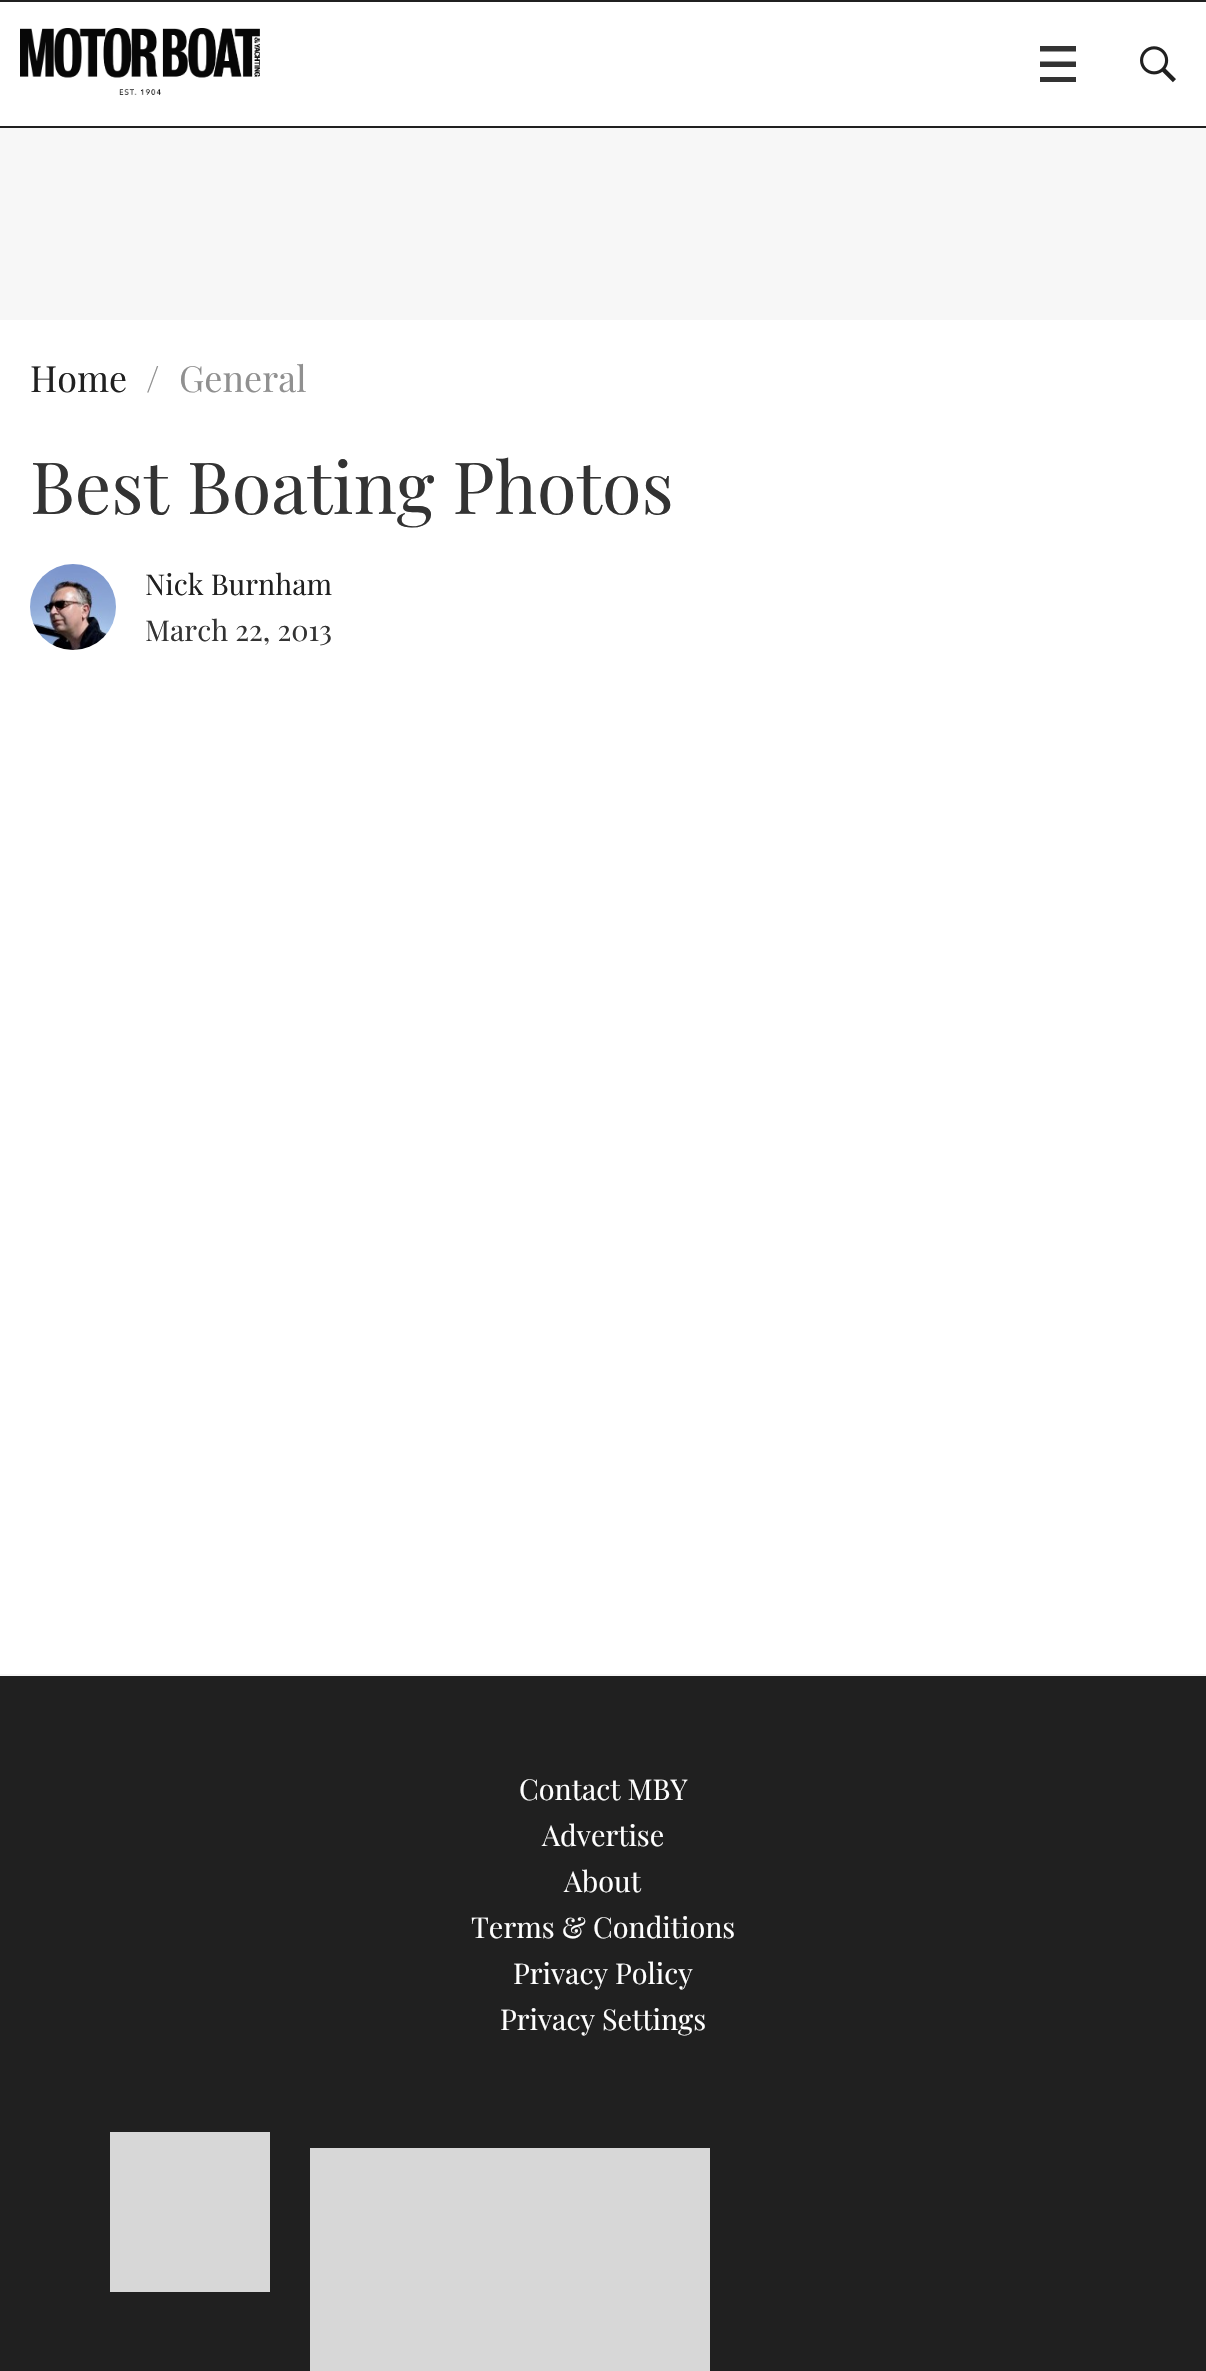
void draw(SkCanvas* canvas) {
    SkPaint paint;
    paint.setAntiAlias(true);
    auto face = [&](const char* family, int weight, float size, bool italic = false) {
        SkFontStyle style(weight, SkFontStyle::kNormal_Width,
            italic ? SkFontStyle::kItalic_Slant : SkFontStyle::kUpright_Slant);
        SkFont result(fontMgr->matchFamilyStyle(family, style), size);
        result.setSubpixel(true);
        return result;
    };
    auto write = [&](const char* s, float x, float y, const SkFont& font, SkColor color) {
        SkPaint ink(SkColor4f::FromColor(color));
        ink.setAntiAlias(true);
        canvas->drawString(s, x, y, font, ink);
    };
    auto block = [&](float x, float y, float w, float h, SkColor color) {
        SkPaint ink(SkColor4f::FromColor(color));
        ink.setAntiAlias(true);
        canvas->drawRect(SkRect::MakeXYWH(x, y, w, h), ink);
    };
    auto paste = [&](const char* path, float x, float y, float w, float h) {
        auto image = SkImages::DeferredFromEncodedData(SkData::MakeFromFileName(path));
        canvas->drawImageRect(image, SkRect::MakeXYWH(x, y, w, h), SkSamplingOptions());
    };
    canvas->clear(SK_ColorWHITE);
    block(0, 0, 1206, 2, SkColorSetRGB(32, 32, 32));
    block(0, 126, 1206, 2, SkColorSetRGB(32, 32, 32));
    paste("pic1.png", 20, 28, 240, 67);
    paint.setColor(SkColorSetRGB(51, 51, 51));
    canvas->drawPath(SkPathBuilder().moveTo(1040, 82).lineTo(1076, 82).lineTo(1076, 77).lineTo(1040, 77).close().moveTo(1040, 67).lineTo(1076, 67).lineTo(1076, 61.5f).lineTo(1040, 61.5f).close().moveTo(1040, 46).lineTo(1040, 51.5f).lineTo(1076, 51.5f).lineTo(1076, 46).close().detach(), paint);
    paste("pic2.png", 1140, 46, 36, 37);
    block(0, 128, 1206, 192, SkColorSetRGB(247, 247, 247));
    auto kFont1 = face("Playfair Display", 400, 36);
    write("Home", 30, 392, kFont1, SkColorSetRGB(32, 32, 32));
    write("/", 146, 392, kFont1, SkColorSetRGB(144, 144, 144));
    write("General", 179, 392, kFont1, SkColorSetRGB(144, 144, 144));
    auto kFont2 = face("Playfair Display", 400, 72);
    write("Best Boating Photos", 30, 514, kFont2, SkColorSetRGB(51, 51, 51));
    paste("pic3.png", 30, 564, 86, 86);
    auto kFont3 = face("Playfair Display", 400, 28.75f);
    write("Nick Burnham", 145, 595, kFont3, SkColorSetRGB(32, 32, 32));
    write("March 22, 2013", 145, 641, kFont3, SkColorSetRGB(51, 51, 51));
    block(0, 1676, 1206, 695, SkColorSetRGB(32, 32, 32));
    block(0, 1674, 1206, 2, SkColorSetRGB(247, 247, 247));
    write("Contact MBY", 519, 1800, kFont3, SK_ColorWHITE);
    write("Advertise", 542, 1846, kFont3, SK_ColorWHITE);
    write("About", 564, 1892, kFont3, SK_ColorWHITE);
    write("Terms & Conditions", 471, 1938, kFont3, SK_ColorWHITE);
    write("Privacy Policy", 513, 1984, kFont3, SK_ColorWHITE);
    write("Privacy Settings", 500, 2030, kFont3, SK_ColorWHITE);
    block(110, 2132, 160, 160, SkColorSetRGB(215, 215, 215));
    block(310, 2148, 400, 223, SkColorSetRGB(215, 215, 215));
}
